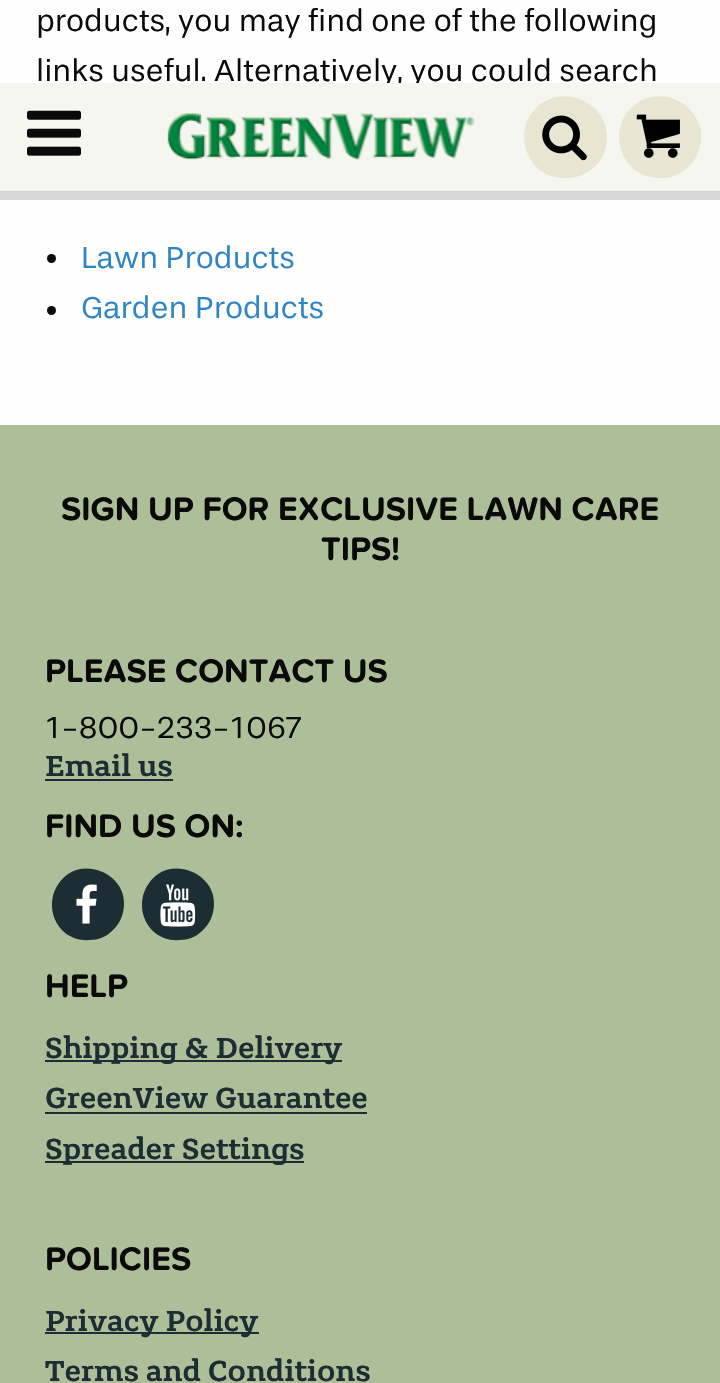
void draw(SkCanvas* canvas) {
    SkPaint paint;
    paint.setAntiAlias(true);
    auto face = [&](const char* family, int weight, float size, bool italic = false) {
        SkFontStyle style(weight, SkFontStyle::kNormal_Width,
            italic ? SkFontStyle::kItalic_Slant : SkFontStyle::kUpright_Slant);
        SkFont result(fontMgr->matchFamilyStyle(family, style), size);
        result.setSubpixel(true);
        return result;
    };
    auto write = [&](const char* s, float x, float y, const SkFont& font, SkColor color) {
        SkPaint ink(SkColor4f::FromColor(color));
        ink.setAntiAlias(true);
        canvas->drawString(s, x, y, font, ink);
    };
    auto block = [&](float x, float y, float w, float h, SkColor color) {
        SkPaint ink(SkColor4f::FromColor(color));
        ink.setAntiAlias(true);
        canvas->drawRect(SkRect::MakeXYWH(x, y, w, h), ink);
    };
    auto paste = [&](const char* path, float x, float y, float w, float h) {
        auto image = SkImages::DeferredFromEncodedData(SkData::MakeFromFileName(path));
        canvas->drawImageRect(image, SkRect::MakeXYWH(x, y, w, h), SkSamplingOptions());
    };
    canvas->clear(SkColorSetRGB(254, 254, 254));
    auto kFont1 = face("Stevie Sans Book", 400, 31.5f);
    write("products, you may find one of the following", 36, 31, kFont1, SkColorSetRGB(10, 10, 10));
    write("links useful. Alternatively, you could search", 36, 81, kFont1, SkColorSetRGB(10, 10, 10));
    paint.setColor(SkColorSetRGB(10, 10, 10));
    canvas->drawCircle(51.5f, 258.5f, 4.5f, paint);
    write("Lawn Products", 81, 268, kFont1, SkColorSetRGB(47, 132, 196));
    canvas->drawCircle(51.5f, 310.5f, 4.5f, paint);
    write("Garden Products", 81, 318, kFont1, SkColorSetRGB(47, 132, 196));
    block(0, 191, 720, 9, SkColorSetRGB(215, 215, 215));
    block(0, 83, 720, 108, SkColorSetRGB(246, 246, 240));
    paste("pic1.png", 27, 110, 54, 46);
    paste("pic2.png", 167, 113, 308, 47);
    paint.setColor(SkColorSetRGB(232, 230, 211));
    canvas->drawPath(SkPathBuilder().moveTo(607, 137).cubicTo(607, 149, 602, 161, 593, 168).cubicTo(586, 174, 577, 178, 568, 178).cubicTo(526, 181, 508, 127, 542, 103).cubicTo(561, 91, 584, 96, 598, 112).cubicTo(604, 120, 607, 128, 607, 137).close().detach(), paint);
    paste("pic3.png", 542, 115, 45, 46);
    canvas->drawPath(SkPathBuilder().moveTo(701, 137).cubicTo(701, 149, 696, 161, 687, 168).cubicTo(680, 174, 672, 178, 663, 178).cubicTo(621, 181, 603, 127, 637, 103).cubicTo(655, 91, 679, 96, 692, 112).cubicTo(698, 120, 702, 128, 701, 137).close().detach(), paint);
    paste("pic4.png", 636, 114, 44, 44);
    block(0, 425, 720, 958, SkColorSetRGB(172, 191, 153));
    auto kFont2 = face("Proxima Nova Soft", 700, 33.75f);
    write("SIGN UP FOR EXCLUSIVE LAWN CARE", 61, 520, kFont2, SkColorSetRGB(10, 10, 10));
    write("TIPS!", 321, 560, kFont2, SkColorSetRGB(10, 10, 10));
    write("PLEASE CONTACT US", 45, 682, kFont2, SkColorSetRGB(10, 10, 10));
    write("1-800-233-1067", 45, 738, kFont1, SkColorSetRGB(10, 10, 10));
    auto kFont3 = face("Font", 400, 31.5f);
    write("Email us", 45, 776, kFont3, SkColorSetRGB(28, 46, 51));
    block(45, 779, 128, 2, SkColorSetRGB(28, 46, 51));
    write("FIND US ON:", 45, 837, kFont2, SkColorSetRGB(10, 10, 10));
    paint.setColor(SkColorSetRGB(28, 46, 51));
    canvas->drawPath(SkPathBuilder().moveTo(124, 904).cubicTo(124, 915, 119, 925, 112, 931).cubicTo(106, 937, 98, 940, 90, 940).cubicTo(53, 943, 38, 896, 68, 874).cubicTo(90, 859, 125, 876, 124, 904).close().detach(), paint);
    paste("pic5.png", 76, 884, 21, 40);
    canvas->drawPath(SkPathBuilder().moveTo(214, 904).cubicTo(214, 915, 209, 925, 202, 931).cubicTo(196, 937, 188, 940, 180, 940).cubicTo(143, 943, 128, 896, 158, 874).cubicTo(180, 859, 215, 876, 214, 904).close().detach(), paint);
    paste("pic6.png", 160, 884, 36, 43);
    write("HELP", 45, 997, kFont2, SkColorSetRGB(10, 10, 10));
    block(45, 1060, 297, 2, SkColorSetRGB(28, 46, 51));
    write("Shipping & Delivery", 45, 1058, kFont3, SkColorSetRGB(28, 46, 51));
    write("GreenView Guarantee", 45, 1108, kFont3, SkColorSetRGB(28, 46, 51));
    block(45, 1112, 322, 2, SkColorSetRGB(28, 46, 51));
    block(45, 1161, 259, 2, SkColorSetRGB(28, 46, 51));
    write("Spreader Settings", 45, 1159, kFont3, SkColorSetRGB(28, 46, 51));
    write("POLICIES", 45, 1270, kFont2, SkColorSetRGB(10, 10, 10));
    block(45, 1332, 214, 2, SkColorSetRGB(28, 46, 51));
    write("Privacy Policy", 45, 1331, kFont3, SkColorSetRGB(28, 46, 51));
    write("Terms and Conditions", 45, 1381, kFont3, SkColorSetRGB(28, 46, 51));
}
